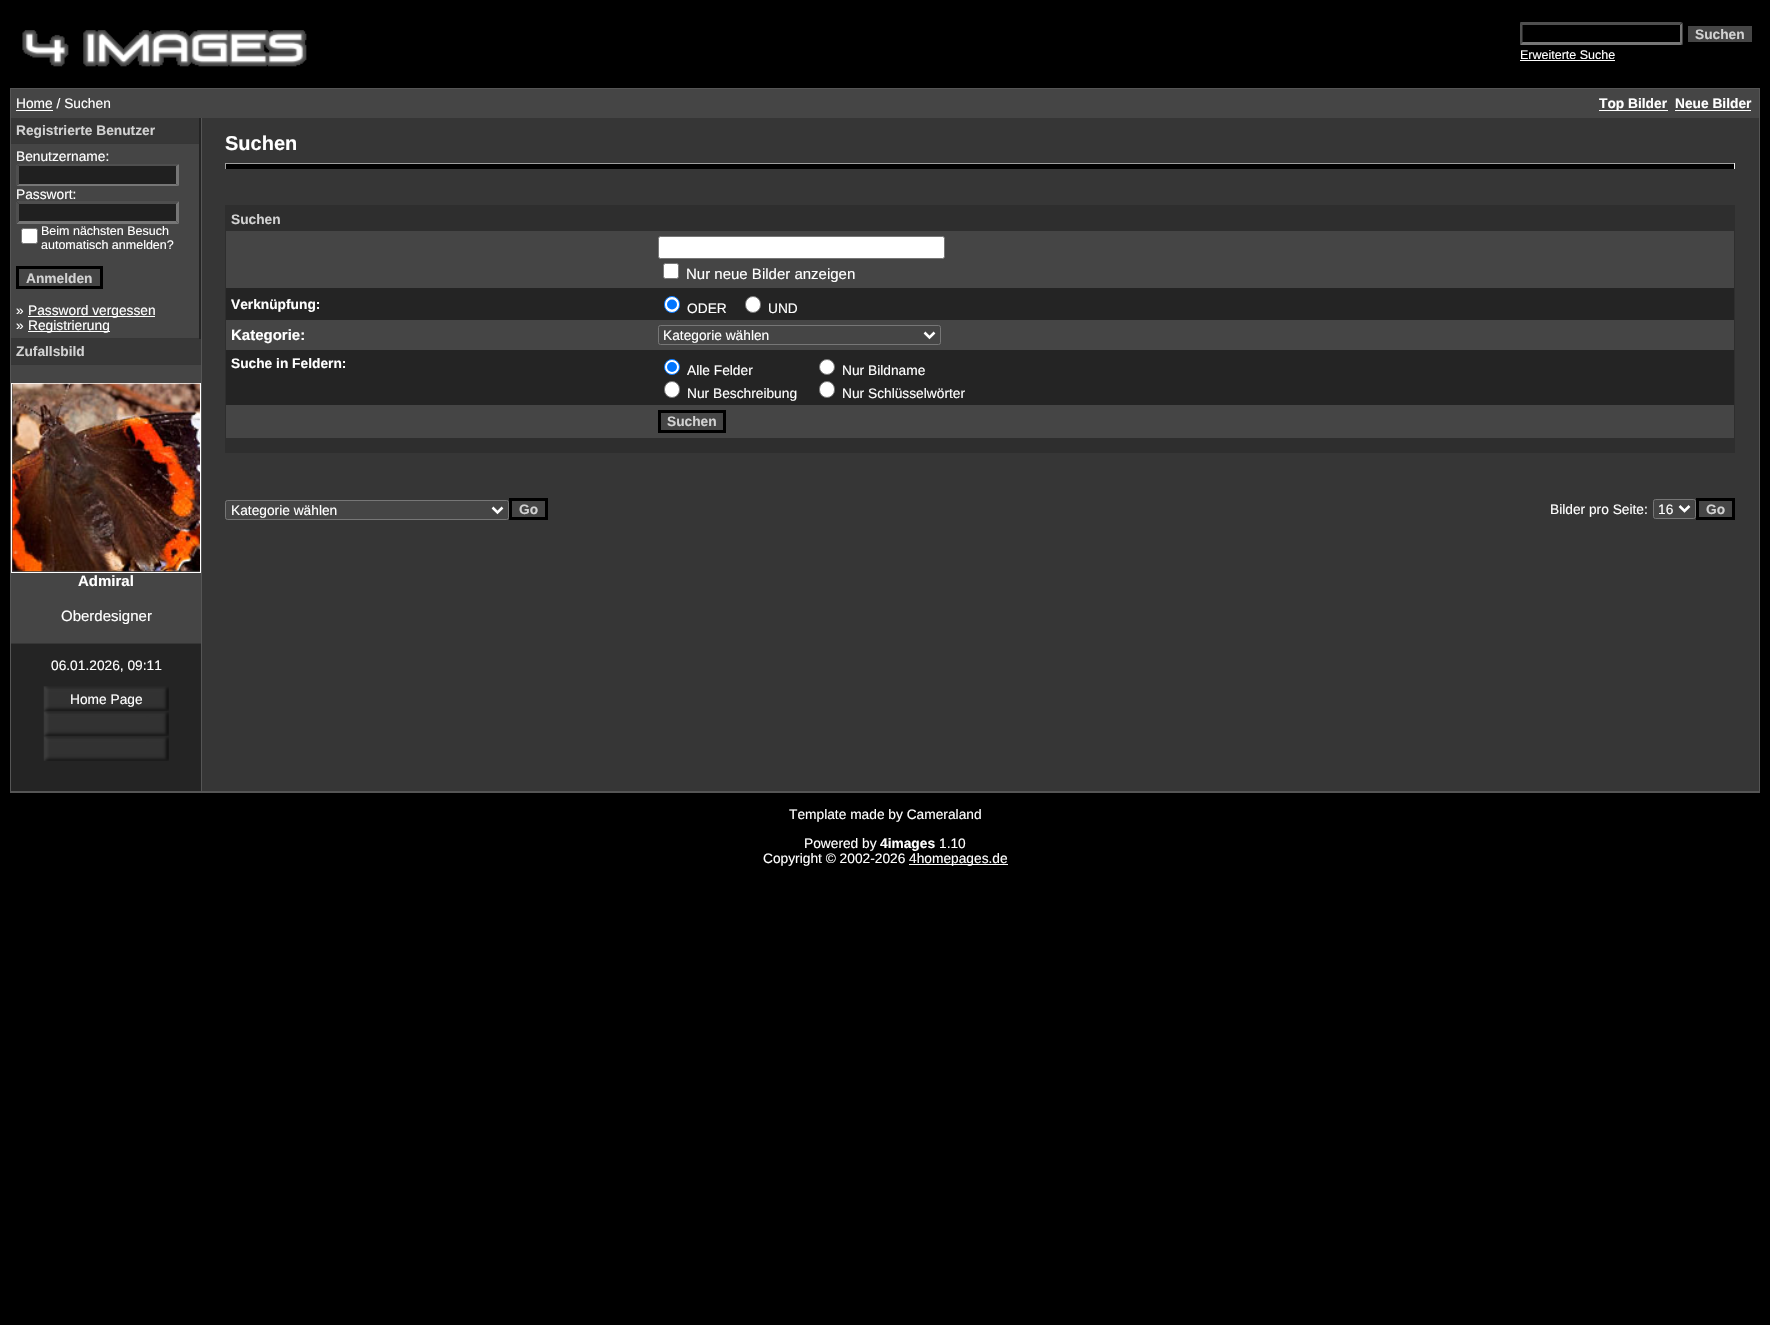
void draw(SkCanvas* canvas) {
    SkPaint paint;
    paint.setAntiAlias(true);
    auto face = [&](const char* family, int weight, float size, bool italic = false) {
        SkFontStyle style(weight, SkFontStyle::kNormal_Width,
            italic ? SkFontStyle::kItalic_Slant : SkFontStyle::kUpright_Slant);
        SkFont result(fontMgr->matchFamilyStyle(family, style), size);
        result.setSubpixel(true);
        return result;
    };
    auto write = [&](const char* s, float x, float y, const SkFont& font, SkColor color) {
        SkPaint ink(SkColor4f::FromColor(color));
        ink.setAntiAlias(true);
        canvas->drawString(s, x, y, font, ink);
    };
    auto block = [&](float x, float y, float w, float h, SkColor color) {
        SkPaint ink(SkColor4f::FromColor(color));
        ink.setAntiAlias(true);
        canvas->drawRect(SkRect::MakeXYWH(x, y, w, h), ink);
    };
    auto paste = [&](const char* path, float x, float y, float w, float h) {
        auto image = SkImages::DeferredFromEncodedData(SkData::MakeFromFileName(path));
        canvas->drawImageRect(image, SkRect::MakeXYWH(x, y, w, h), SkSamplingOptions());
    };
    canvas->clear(SK_ColorBLACK);
    paste("pic1.png", 22, 30, 285, 37);
    paint.setColor(SkColorSetRGB(79, 79, 79));
    canvas->drawPath(SkPathBuilder().moveTo(1520, 22).lineTo(1682, 22).lineTo(1680, 25).lineTo(1522, 25).close().detach(), paint);
    paint.setColor(SkColorSetRGB(118, 118, 118));
    canvas->drawPath(SkPathBuilder().moveTo(1682.5f, 22.5f).lineTo(1682.5f, 45).lineTo(1680, 42.5f).lineTo(1680, 25).close().detach(), paint);
    canvas->drawPath(SkPathBuilder().moveTo(1682, 45).lineTo(1520, 45).lineTo(1522, 42).lineTo(1680, 42).close().detach(), paint);
    paint.setColor(SkColorSetRGB(79, 79, 79));
    canvas->drawPath(SkPathBuilder().moveTo(1520, 45).lineTo(1520, 22.5f).lineTo(1522.5f, 25).lineTo(1522.5f, 42.5f).close().detach(), paint);
    block(1688, 26, 64, 16, SkColorSetRGB(69, 69, 69));
    auto kFont1 = face("Liberation Sans", 700, 13.75f);
    write("Suchen", 1695, 39, kFont1, SkColorSetRGB(210, 210, 210));
    auto kFont2 = face("Liberation Sans", 400, 12.5f);
    write("Erweiterte Suche", 1520, 59, kFont2, SK_ColorWHITE);
    block(1520, 60, 95, 1, SK_ColorWHITE);
    block(10, 88, 1750, 705, SkColorSetRGB(85, 85, 85));
    block(202, 118, 1557, 673, SkColorSetRGB(54, 54, 54));
    block(11, 89, 1748, 29, SkColorSetRGB(69, 69, 69));
    auto kFont3 = face("Liberation Sans", 400, 13.75f);
    write("Home / Suchen", 16, 108, kFont3, SK_ColorWHITE);
    block(16, 110, 37, 1, SK_ColorWHITE);
    block(1599, 110, 69, 1, SK_ColorWHITE);
    write("Top Bilder", 1599, 108, kFont1, SK_ColorWHITE);
    write("Neue Bilder", 1675, 108, kFont1, SK_ColorWHITE);
    block(1675, 110, 76, 1, SK_ColorWHITE);
    block(11, 118, 190, 673, SkColorSetRGB(36, 36, 36));
    block(11, 118, 188, 25, SkColorSetRGB(55, 55, 55));
    write("Registrierte Benutzer", 16, 135, kFont1, SkColorSetRGB(210, 210, 210));
    block(11, 143, 188, 1, SkColorSetRGB(54, 54, 54));
    block(11, 144, 188, 194, SkColorSetRGB(69, 69, 69));
    write("Benutzername:", 16, 161, kFont3, SK_ColorWHITE);
    block(16, 164, 163, 22, SkColorSetRGB(32, 32, 32));
    canvas->drawPath(SkPathBuilder().moveTo(16, 164).lineTo(179, 164).lineTo(176, 166).lineTo(19, 166).close().detach(), paint);
    paint.setColor(SkColorSetRGB(118, 118, 118));
    canvas->drawPath(SkPathBuilder().moveTo(179, 164).lineTo(179, 186).lineTo(176, 184).lineTo(176, 166).close().detach(), paint);
    canvas->drawPath(SkPathBuilder().moveTo(179, 186).lineTo(16, 186).lineTo(19, 184).lineTo(176, 184).close().detach(), paint);
    paint.setColor(SkColorSetRGB(79, 79, 79));
    canvas->drawPath(SkPathBuilder().moveTo(16, 186).lineTo(16, 164).lineTo(19, 166).lineTo(19, 184).close().detach(), paint);
    write("Passwort:", 16, 199, kFont3, SK_ColorWHITE);
    block(16, 201, 163, 23, SkColorSetRGB(32, 32, 32));
    canvas->drawPath(SkPathBuilder().moveTo(16, 201).lineTo(179, 201).lineTo(176, 204).lineTo(19, 204).close().detach(), paint);
    paint.setColor(SkColorSetRGB(118, 118, 118));
    canvas->drawPath(SkPathBuilder().moveTo(179, 201).lineTo(179, 224).lineTo(176, 221).lineTo(176, 204).close().detach(), paint);
    canvas->drawPath(SkPathBuilder().moveTo(179, 224).lineTo(16, 224).lineTo(19, 221).lineTo(176, 221).close().detach(), paint);
    paint.setColor(SkColorSetRGB(79, 79, 79));
    canvas->drawPath(SkPathBuilder().moveTo(16, 224).lineTo(16, 201).lineTo(19, 204).lineTo(19, 221).close().detach(), paint);
    paint.setColor(SK_ColorWHITE);
    canvas->drawRoundRect(SkRect::MakeXYWH(21.5f, 228.5f, 16, 15), 2, 2, paint);
    paint.setStyle(SkPaint::kStroke_Style);
    paint.setStrokeWidth(1);
    paint.setColor(SkColorSetRGB(118, 118, 118));
    canvas->drawRoundRect(SkRect::MakeXYWH(21.5f, 228.5f, 16, 15), 2, 2, paint);
    write("Beim nächsten Besuch", 41, 235, kFont2, SK_ColorWHITE);
    write("automatisch anmelden?", 41, 249, kFont2, SK_ColorWHITE);
    paint.setStrokeWidth(3);
    paint.setColor(SK_ColorBLACK);
    canvas->drawRect(SkRect::MakeXYWH(17.5f, 267.5f, 84, 20), paint);
    write("Anmelden", 26, 283, kFont1, SkColorSetRGB(210, 210, 210));
    write("»", 16, 315, kFont3, SK_ColorWHITE);
    block(28, 316, 127, 1, SK_ColorWHITE);
    write("Password vergessen", 28, 315, kFont3, SK_ColorWHITE);
    write("»", 16, 330, kFont3, SK_ColorWHITE);
    block(28, 331, 82, 1, SK_ColorWHITE);
    write("Registrierung", 28, 330, kFont3, SK_ColorWHITE);
    block(11, 338, 188, 1, SkColorSetRGB(54, 54, 54));
    block(11, 339, 190, 25, SkColorSetRGB(55, 55, 55));
    write("Zufallsbild", 16, 356, kFont1, SkColorSetRGB(210, 210, 210));
    block(11, 364, 190, 1, SkColorSetRGB(54, 54, 54));
    block(11, 365, 190, 278, SkColorSetRGB(69, 69, 69));
    paint.setStrokeWidth(1);
    paint.setColor(SK_ColorWHITE);
    canvas->drawRect(SkRect::MakeXYWH(11.5f, 383.5f, 189, 189), paint);
    paste("pic2.png", 12, 383, 188, 189);
    auto kFont4 = face("Liberation Sans", 700, 15);
    write("Admiral", 78, 586, kFont4, SK_ColorWHITE);
    auto kFont5 = face("Liberation Sans", 400, 15);
    write("Oberdesigner", 61, 621, kFont5, SK_ColorWHITE);
    block(11, 643, 190, 1, SkColorSetRGB(54, 54, 54));
    write("06.01.2026, 09:11", 51, 670, kFont3, SK_ColorWHITE);
    paste("pic3.png", 43, 686, 126, 25);
    write("Home Page", 70, 704, kFont3, SK_ColorWHITE);
    paste("pic3.png", 43, 711, 126, 25);
    paste("pic3.png", 43, 736, 126, 25);
    auto kFont6 = face("Liberation Sans", 700, 20);
    write("Suchen", 225, 150, kFont6, SK_ColorWHITE);
    block(225, 164, 1510, 5, SK_ColorBLACK);
    block(225, 163, 1510, 1, SkColorSetRGB(159, 159, 159));
    block(1734, 163, 1, 6, SkColorSetRGB(238, 238, 238));
    block(225, 163, 1, 6, SkColorSetRGB(159, 159, 159));
    block(225, 205, 1510, 248, SkColorSetRGB(46, 46, 46));
    write("Suchen", 231, 224, kFont1, SkColorSetRGB(210, 210, 210));
    block(226, 231, 1508, 57, SkColorSetRGB(69, 69, 69));
    paint.setStyle(SkPaint::kFill_Style);
    canvas->drawRoundRect(SkRect::MakeXYWH(658.5f, 236.5f, 286, 22), 2, 2, paint);
    paint.setStyle(SkPaint::kStroke_Style);
    paint.setColor(SkColorSetRGB(118, 118, 118));
    canvas->drawRoundRect(SkRect::MakeXYWH(658.5f, 236.5f, 286, 22), 2, 2, paint);
    paint.setStyle(SkPaint::kFill_Style);
    paint.setColor(SK_ColorWHITE);
    canvas->drawRoundRect(SkRect::MakeXYWH(663.5f, 263.5f, 15, 15), 2, 2, paint);
    paint.setStyle(SkPaint::kStroke_Style);
    paint.setColor(SkColorSetRGB(118, 118, 118));
    canvas->drawRoundRect(SkRect::MakeXYWH(663.5f, 263.5f, 15, 15), 2, 2, paint);
    write("Nur neue Bilder anzeigen", 686, 279, kFont5, SK_ColorWHITE);
    block(226, 288, 1508, 32, SkColorSetRGB(36, 36, 36));
    write("Verknüpfung:", 231, 309, kFont1, SK_ColorWHITE);
    paint.setStyle(SkPaint::kFill_Style);
    paint.setColor(SK_ColorWHITE);
    canvas->drawRoundRect(SkRect::MakeXYWH(664.5f, 296.5f, 15, 16), 7.5f, 7.5f, paint);
    paint.setStyle(SkPaint::kStroke_Style);
    paint.setColor(SkColorSetRGB(0, 117, 255));
    canvas->drawRoundRect(SkRect::MakeXYWH(664.5f, 296.5f, 15, 16), 7.5f, 7.5f, paint);
    paint.setStyle(SkPaint::kFill_Style);
    canvas->drawCircle(672, 304.5f, 5, paint);
    write("ODER", 687, 313, kFont3, SK_ColorWHITE);
    paint.setColor(SK_ColorWHITE);
    canvas->drawRoundRect(SkRect::MakeXYWH(745.5f, 296.5f, 15, 16), 7.5f, 7.5f, paint);
    paint.setStyle(SkPaint::kStroke_Style);
    paint.setColor(SkColorSetRGB(118, 118, 118));
    canvas->drawRoundRect(SkRect::MakeXYWH(745.5f, 296.5f, 15, 16), 7.5f, 7.5f, paint);
    write("UND", 768, 313, kFont3, SK_ColorWHITE);
    block(226, 320, 1508, 30, SkColorSetRGB(69, 69, 69));
    write("Kategorie:", 231, 340, kFont4, SK_ColorWHITE);
    canvas->drawRoundRect(SkRect::MakeXYWH(658.5f, 325.5f, 282, 19), 2, 2, paint);
    paint.setStrokeWidth(2.5f);
    paint.setColor(SK_ColorWHITE);
    canvas->drawPath(SkPathBuilder().moveTo(924.5f, 332.5f).lineTo(929.5f, 337.5f).lineTo(934.5f, 332.5f).detach(), paint);
    write("Kategorie wählen", 663, 340, kFont3, SK_ColorWHITE);
    block(226, 350, 1508, 55, SkColorSetRGB(36, 36, 36));
    write("Suche in Feldern:", 231, 368, kFont1, SK_ColorWHITE);
    paint.setStyle(SkPaint::kFill_Style);
    canvas->drawCircle(672, 367, 7.5f, paint);
    paint.setStyle(SkPaint::kStroke_Style);
    paint.setStrokeWidth(1);
    paint.setColor(SkColorSetRGB(0, 117, 255));
    canvas->drawCircle(672, 367, 7.5f, paint);
    paint.setStyle(SkPaint::kFill_Style);
    canvas->drawCircle(672, 367, 5, paint);
    write("Alle Felder", 687, 375, kFont3, SK_ColorWHITE);
    paint.setColor(SK_ColorWHITE);
    canvas->drawCircle(827, 367, 7.5f, paint);
    paint.setStyle(SkPaint::kStroke_Style);
    paint.setColor(SkColorSetRGB(118, 118, 118));
    canvas->drawCircle(827, 367, 7.5f, paint);
    write("Nur Bildname", 842, 375, kFont3, SK_ColorWHITE);
    paint.setStyle(SkPaint::kFill_Style);
    paint.setColor(SK_ColorWHITE);
    canvas->drawRoundRect(SkRect::MakeXYWH(664.5f, 381.5f, 15, 16), 7.5f, 7.5f, paint);
    paint.setStyle(SkPaint::kStroke_Style);
    paint.setColor(SkColorSetRGB(118, 118, 118));
    canvas->drawRoundRect(SkRect::MakeXYWH(664.5f, 381.5f, 15, 16), 7.5f, 7.5f, paint);
    write("Nur Beschreibung", 687, 398, kFont3, SK_ColorWHITE);
    paint.setStyle(SkPaint::kFill_Style);
    paint.setColor(SK_ColorWHITE);
    canvas->drawRoundRect(SkRect::MakeXYWH(819.5f, 381.5f, 15, 16), 7.5f, 7.5f, paint);
    paint.setStyle(SkPaint::kStroke_Style);
    paint.setColor(SkColorSetRGB(118, 118, 118));
    canvas->drawRoundRect(SkRect::MakeXYWH(819.5f, 381.5f, 15, 16), 7.5f, 7.5f, paint);
    write("Nur Schlüsselwörter", 842, 398, kFont3, SK_ColorWHITE);
    block(226, 405, 1508, 33, SkColorSetRGB(69, 69, 69));
    paint.setStrokeWidth(3);
    paint.setColor(SK_ColorBLACK);
    canvas->drawRect(SkRect::MakeXYWH(659.5f, 411.5f, 65, 20), paint);
    write("Suchen", 667, 426, kFont1, SkColorSetRGB(210, 210, 210));
    paint.setStyle(SkPaint::kFill_Style);
    paint.setColor(SkColorSetRGB(69, 69, 69));
    canvas->drawRoundRect(SkRect::MakeXYWH(225.5f, 500.5f, 283, 19), 2, 2, paint);
    paint.setStyle(SkPaint::kStroke_Style);
    paint.setStrokeWidth(1);
    paint.setColor(SkColorSetRGB(118, 118, 118));
    canvas->drawRoundRect(SkRect::MakeXYWH(225.5f, 500.5f, 283, 19), 2, 2, paint);
    paint.setStrokeWidth(2.5f);
    paint.setColor(SK_ColorWHITE);
    canvas->drawPath(SkPathBuilder().moveTo(492.5f, 507.5f).lineTo(497.5f, 512.5f).lineTo(502.5f, 507.5f).detach(), paint);
    write("Kategorie wählen", 231, 515, kFont3, SK_ColorWHITE);
    paint.setStyle(SkPaint::kFill_Style);
    paint.setColor(SkColorSetRGB(69, 69, 69));
    canvas->drawRect(SkRect::MakeXYWH(510.5f, 499.5f, 36, 19), paint);
    paint.setStyle(SkPaint::kStroke_Style);
    paint.setStrokeWidth(3);
    paint.setColor(SK_ColorBLACK);
    canvas->drawRect(SkRect::MakeXYWH(510.5f, 499.5f, 36, 19), paint);
    write("Go", 519, 514, kFont1, SkColorSetRGB(210, 210, 210));
    write("Bilder pro Seite:", 1550, 514, kFont3, SK_ColorWHITE);
    paint.setStyle(SkPaint::kFill_Style);
    paint.setColor(SkColorSetRGB(69, 69, 69));
    canvas->drawRoundRect(SkRect::MakeXYWH(1653.5f, 499.5f, 42, 19), 2, 2, paint);
    paint.setStyle(SkPaint::kStroke_Style);
    paint.setStrokeWidth(1);
    paint.setColor(SkColorSetRGB(118, 118, 118));
    canvas->drawRoundRect(SkRect::MakeXYWH(1653.5f, 499.5f, 42, 19), 2, 2, paint);
    paint.setStrokeWidth(2.5f);
    paint.setColor(SK_ColorWHITE);
    canvas->drawPath(SkPathBuilder().moveTo(1679.5f, 506).lineTo(1684.5f, 511).lineTo(1689.5f, 506).detach(), paint);
    write("16", 1658, 514, kFont3, SK_ColorWHITE);
    paint.setStyle(SkPaint::kFill_Style);
    paint.setColor(SkColorSetRGB(69, 69, 69));
    canvas->drawRect(SkRect::MakeXYWH(1697.5f, 499.5f, 36, 19), paint);
    paint.setStyle(SkPaint::kStroke_Style);
    paint.setStrokeWidth(3);
    paint.setColor(SK_ColorBLACK);
    canvas->drawRect(SkRect::MakeXYWH(1697.5f, 499.5f, 36, 19), paint);
    write("Go", 1706, 514, kFont1, SkColorSetRGB(210, 210, 210));
    write("Template made by Cameraland", 789, 819, kFont3, SK_ColorWHITE);
    write("Powered by", 804, 848, kFont3, SK_ColorWHITE);
    write("4images", 880, 848, kFont1, SK_ColorWHITE);
    write("1.10", 939, 848, kFont3, SK_ColorWHITE);
    write("Copyright © 2002-2026", 763, 863, kFont3, SK_ColorWHITE);
    block(909, 864, 99, 1, SK_ColorWHITE);
    write("4homepages.de", 909, 863, kFont3, SK_ColorWHITE);
}
